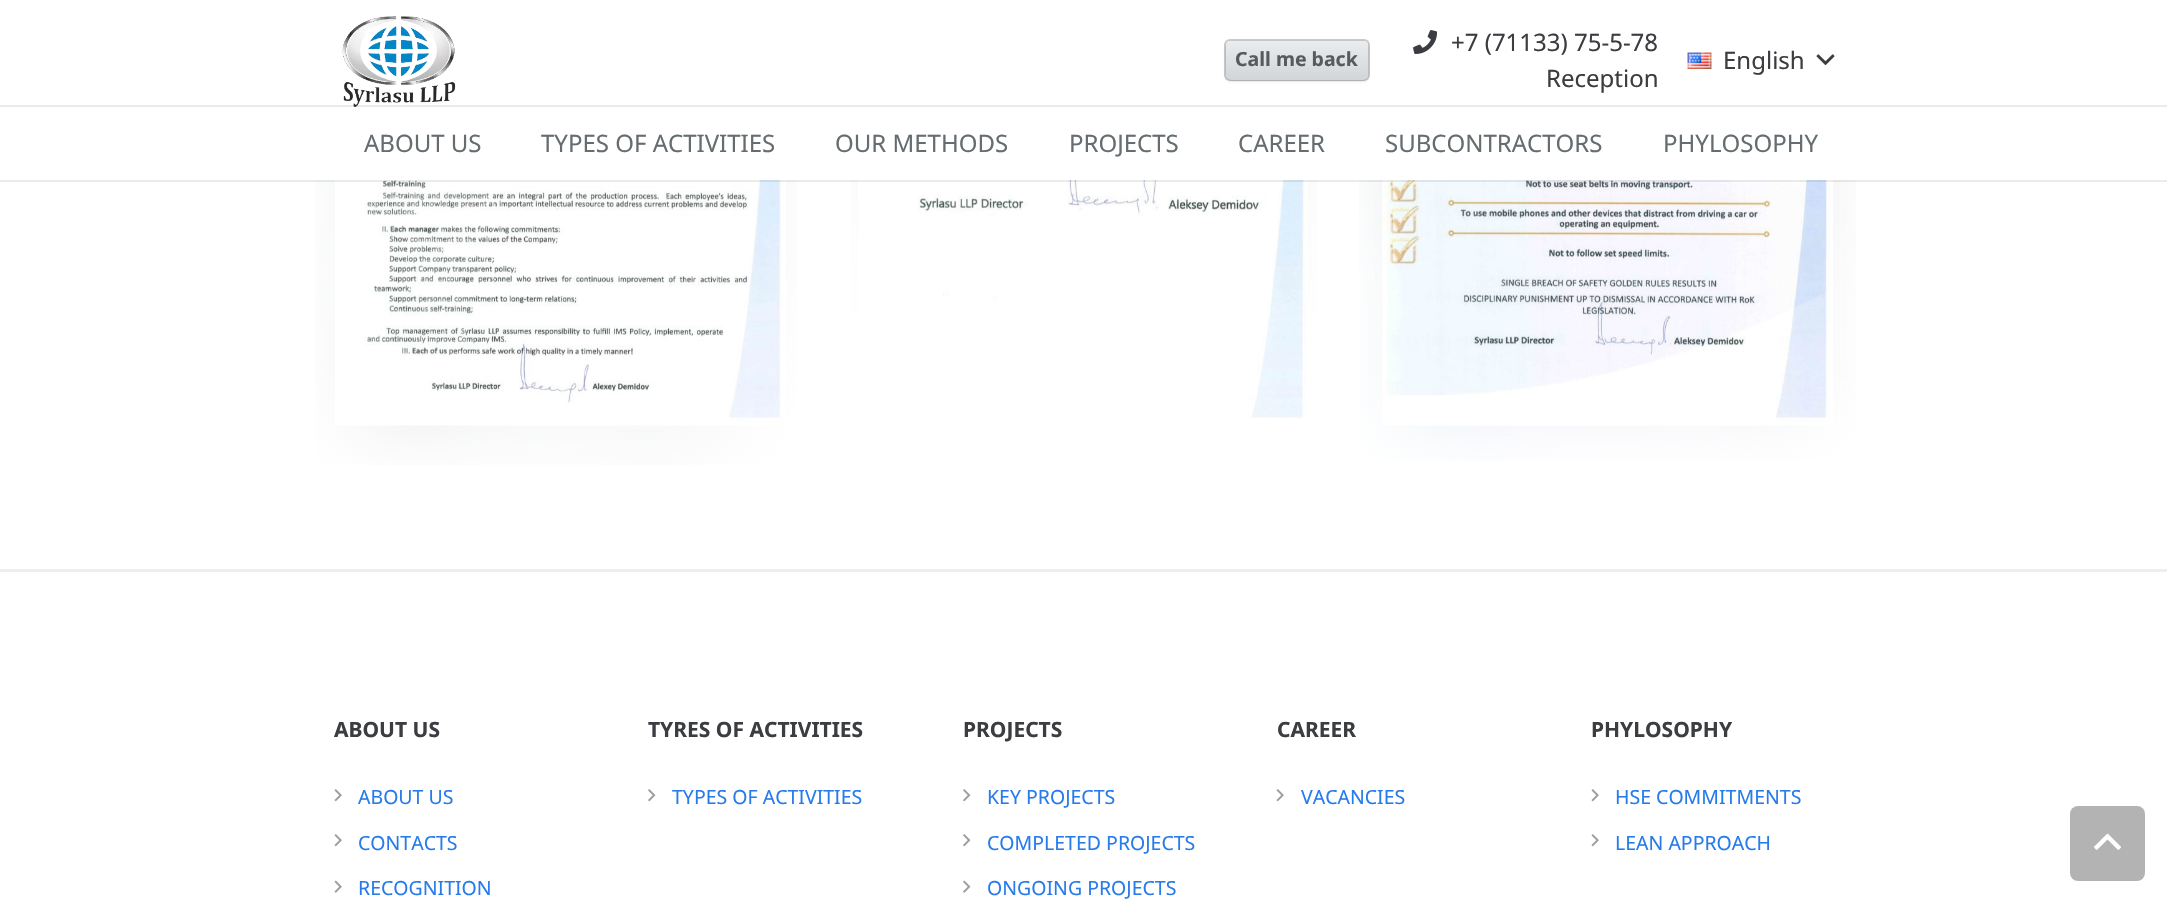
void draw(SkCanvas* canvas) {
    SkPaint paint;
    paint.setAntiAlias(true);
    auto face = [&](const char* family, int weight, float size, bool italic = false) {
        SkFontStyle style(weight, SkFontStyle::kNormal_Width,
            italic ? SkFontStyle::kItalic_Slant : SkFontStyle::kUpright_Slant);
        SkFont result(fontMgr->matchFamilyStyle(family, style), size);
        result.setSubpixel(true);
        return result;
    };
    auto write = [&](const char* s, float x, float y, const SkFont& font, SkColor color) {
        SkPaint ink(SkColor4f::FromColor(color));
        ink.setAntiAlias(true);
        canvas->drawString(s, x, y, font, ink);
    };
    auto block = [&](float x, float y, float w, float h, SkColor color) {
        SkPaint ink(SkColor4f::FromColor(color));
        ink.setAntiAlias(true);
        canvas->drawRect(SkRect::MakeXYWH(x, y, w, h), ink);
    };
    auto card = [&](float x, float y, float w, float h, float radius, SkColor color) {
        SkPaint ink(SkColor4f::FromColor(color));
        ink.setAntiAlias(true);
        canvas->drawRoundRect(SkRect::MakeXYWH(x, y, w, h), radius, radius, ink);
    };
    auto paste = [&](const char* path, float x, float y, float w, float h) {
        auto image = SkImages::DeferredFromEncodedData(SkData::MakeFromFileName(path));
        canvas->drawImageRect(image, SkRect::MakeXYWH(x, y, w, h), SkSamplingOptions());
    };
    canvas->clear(SK_ColorWHITE);
    paint.setColor(SkColorSetRGB(235, 235, 235));
    canvas->drawPath(SkPathBuilder().moveTo(0, 105).lineTo(0, 107).lineTo(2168, 107).lineTo(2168, 17).lineTo(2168, 105).close().detach(), paint);
    paste("pic1.png", 342, 16, 114, 91);
    paint.setColor(SkColorSetARGB(51, 0, 0, 0));
    paint.setMaskFilter(SkMaskFilter::MakeBlur(kNormal_SkBlurStyle, 1.5f));
    canvas->drawRoundRect(SkRect::MakeXYWH(1226, 42, 142, 39), 5, 5, paint);
    paint.setMaskFilter(nullptr);
    paint.setStyle(SkPaint::kStroke_Style);
    paint.setStrokeWidth(2);
    canvas->drawRoundRect(SkRect::MakeXYWH(1225, 40, 144, 40), 5, 5, paint);
    card(1226, 41, 142, 39, 5, SkColorSetRGB(234, 238, 241));
    paint.setStyle(SkPaint::kFill_Style);
    {
        const SkColor colors[] = {SkColorSetARGB(0, 0, 0, 0), SkColorSetARGB(26, 0, 0, 0)};
        const float stops[] = {0, 1};
        const SkPoint ends[] = {{1297, 40}, {1297, 80}};
        paint.setShader(SkGradientShader::MakeLinear(ends, colors, stops, 2, SkTileMode::kClamp));
        paint.setAlpha(255);
    }
    canvas->drawRoundRect(SkRect::MakeXYWH(1226, 41, 142, 39), 5, 5, paint);
    auto kFont1 = face("Noto Sans", 700, 19.5f);
    write("Call me back", 1235, 66, kFont1, SkColorSetRGB(89, 90, 92));
    paste("pic2.png", 1413, 30, 25, 24);
    auto kFont2 = face("Noto Sans", 400, 24);
    write("+7 (71133) 75-5-78", 1451, 51, kFont2, SkColorSetRGB(59, 61, 64));
    write("Reception", 1546, 87, kFont2, SkColorSetRGB(59, 61, 64));
    paste("pic3.png", 1687, 52, 25, 17);
    write("English", 1723, 69, kFont2, SkColorSetRGB(59, 61, 64));
    paste("pic4.png", 1816, 54, 19, 11);
    paste("pic5.png", 315, 180, 482, 285);
    paste("pic6.png", 335, 180, 451, 246);
    paste("pic7.png", 851, 180, 466, 134);
    paste("pic8.png", 858, 180, 450, 238);
    paste("pic9.png", 1359, 180, 497, 281);
    paste("pic10.png", 1382, 180, 451, 246);
    paint.setShader(nullptr);
    paint.setColor(SkColorSetARGB(20, 0, 0, 0));
    canvas->drawPath(SkPathBuilder().moveTo(0, 180).lineTo(0, 182).lineTo(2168, 182).lineTo(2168, 107).lineTo(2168, 180).close().detach(), paint);
    write("ABOUT US", 364, 152, kFont2, SkColorSetRGB(102, 109, 112));
    write("TYPES OF ACTIVITIES", 541, 152, kFont2, SkColorSetRGB(102, 109, 112));
    write("OUR METHODS", 835, 152, kFont2, SkColorSetRGB(102, 109, 112));
    write("PROJECTS", 1069, 152, kFont2, SkColorSetRGB(102, 109, 112));
    write("CAREER", 1238, 152, kFont2, SkColorSetRGB(102, 109, 112));
    write("SUBCONTRACTORS", 1385, 152, kFont2, SkColorSetRGB(102, 109, 112));
    write("PHYLOSOPHY", 1663, 152, kFont2, SkColorSetRGB(102, 109, 112));
    block(0, 569, 2167, 3, SkColorSetRGB(238, 238, 238));
    auto kFont3 = face("Noto Sans", 700, 21);
    write("ABOUT US", 334, 737, kFont3, SkColorSetRGB(59, 61, 64));
    paste("pic11.png", 334, 789, 8, 13);
    auto kFont4 = face("Noto Sans", 400, 19.5f);
    write("ABOUT US", 358, 804, kFont4, SkColorSetRGB(39, 124, 234));
    paste("pic11.png", 334, 834, 8, 13);
    write("CONTACTS", 358, 850, kFont4, SkColorSetRGB(39, 124, 234));
    paste("pic12.png", 334, 880, 8, 13);
    write("RECOGNITION", 358, 895, kFont4, SkColorSetRGB(39, 124, 234));
    write("TYRES OF ACTIVITIES", 648, 737, kFont3, SkColorSetRGB(59, 61, 64));
    paste("pic13.png", 648, 789, 8, 13);
    write("TYPES OF ACTIVITIES", 672, 804, kFont4, SkColorSetRGB(39, 124, 234));
    write("PROJECTS", 963, 737, kFont3, SkColorSetRGB(59, 61, 64));
    paste("pic13.png", 963, 789, 8, 13);
    write("KEY PROJECTS", 987, 804, kFont4, SkColorSetRGB(39, 124, 234));
    paste("pic13.png", 963, 834, 8, 13);
    write("COMPLETED PROJECTS", 987, 850, kFont4, SkColorSetRGB(39, 124, 234));
    paste("pic14.png", 963, 880, 8, 13);
    write("ONGOING PROJECTS", 987, 895, kFont4, SkColorSetRGB(39, 124, 234));
    write("CAREER", 1277, 737, kFont3, SkColorSetRGB(59, 61, 64));
    paste("pic11.png", 1276, 789, 8, 13);
    write("VACANCIES", 1301, 804, kFont4, SkColorSetRGB(39, 124, 234));
    write("PHYLOSOPHY", 1591, 737, kFont3, SkColorSetRGB(59, 61, 64));
    paste("pic11.png", 1591, 789, 8, 13);
    write("HSE COMMITMENTS", 1615, 804, kFont4, SkColorSetRGB(39, 124, 234));
    paste("pic11.png", 1591, 834, 8, 13);
    write("LEAN APPROACH", 1615, 850, kFont4, SkColorSetRGB(39, 124, 234));
    card(2070, 806, 75, 75, 8, SkColorSetRGB(179, 179, 179));
    paste("pic15.png", 2094, 833, 27, 17);
}
